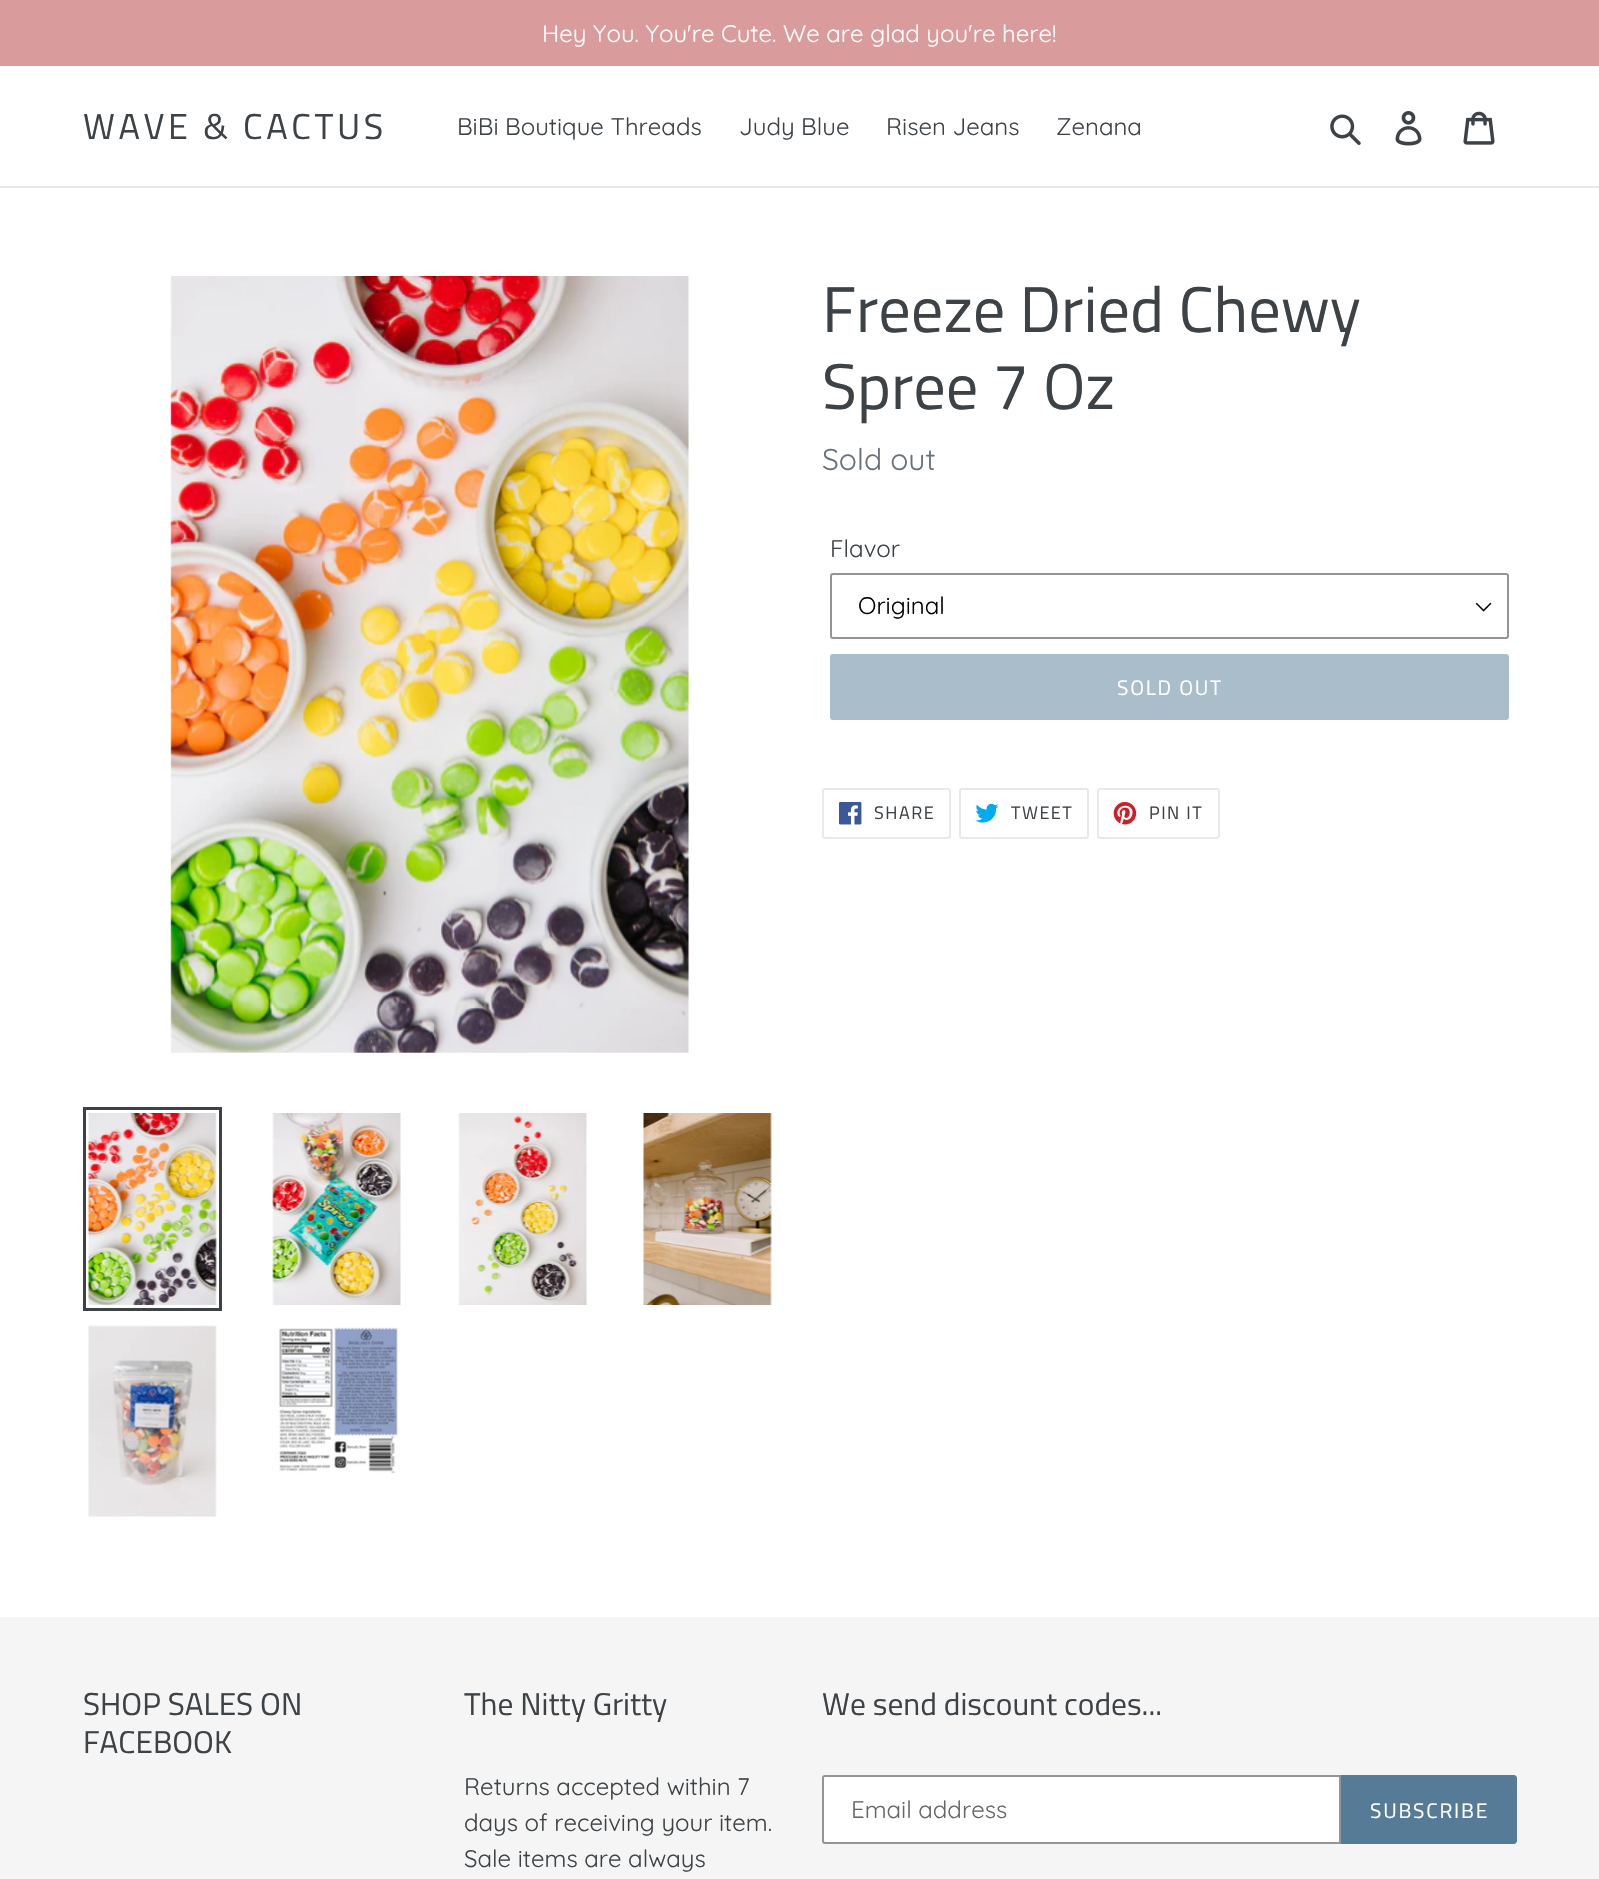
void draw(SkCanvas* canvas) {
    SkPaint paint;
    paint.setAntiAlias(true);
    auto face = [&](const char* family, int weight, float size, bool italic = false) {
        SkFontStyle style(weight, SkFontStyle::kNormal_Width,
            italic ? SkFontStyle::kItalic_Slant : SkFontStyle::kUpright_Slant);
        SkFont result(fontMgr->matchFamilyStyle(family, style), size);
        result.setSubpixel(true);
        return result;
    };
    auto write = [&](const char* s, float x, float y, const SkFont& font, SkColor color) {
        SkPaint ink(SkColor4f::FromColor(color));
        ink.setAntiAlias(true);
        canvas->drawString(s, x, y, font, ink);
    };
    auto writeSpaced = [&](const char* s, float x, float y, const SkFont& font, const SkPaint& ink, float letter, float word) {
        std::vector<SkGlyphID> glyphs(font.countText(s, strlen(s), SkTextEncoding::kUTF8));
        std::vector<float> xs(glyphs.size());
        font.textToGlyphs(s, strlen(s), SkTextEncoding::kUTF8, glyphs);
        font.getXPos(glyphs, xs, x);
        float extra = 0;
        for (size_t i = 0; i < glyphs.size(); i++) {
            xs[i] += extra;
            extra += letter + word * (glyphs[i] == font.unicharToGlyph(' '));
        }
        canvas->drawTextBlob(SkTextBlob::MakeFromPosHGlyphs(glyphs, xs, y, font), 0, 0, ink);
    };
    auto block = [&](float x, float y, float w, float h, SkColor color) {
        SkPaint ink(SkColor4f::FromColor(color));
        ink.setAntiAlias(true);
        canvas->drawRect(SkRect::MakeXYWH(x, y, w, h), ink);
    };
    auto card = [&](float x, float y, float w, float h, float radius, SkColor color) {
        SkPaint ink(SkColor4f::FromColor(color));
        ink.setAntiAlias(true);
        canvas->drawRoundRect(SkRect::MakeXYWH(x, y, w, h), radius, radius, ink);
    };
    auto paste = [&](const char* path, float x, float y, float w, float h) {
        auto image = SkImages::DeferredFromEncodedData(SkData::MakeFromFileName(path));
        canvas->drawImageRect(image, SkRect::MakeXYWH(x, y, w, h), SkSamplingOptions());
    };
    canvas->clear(SK_ColorWHITE);
    block(0, 0, 1599, 66, SkColorSetRGB(217, 155, 155));
    auto kFont1 = face("Quicksand", 400, 24);
    write("Hey You. You're Cute. We are glad you're here!", 542, 42, kFont1, SK_ColorWHITE);
    block(0, 186, 1599, 2, SkColorSetRGB(232, 233, 235));
    auto kFont2 = face("Titillium Web", 400, 36);
    paint.setColor(SkColorSetRGB(61, 66, 70));
    writeSpaced("WAVE & CACTUS", 83, 139, kFont2, paint, 3.6f, 0);
    write("BiBi Boutique Threads", 457, 135, kFont1, SkColorSetRGB(61, 66, 70));
    write("Judy Blue", 739, 135, kFont1, SkColorSetRGB(61, 66, 70));
    write("Risen Jeans", 886, 135, kFont1, SkColorSetRGB(61, 66, 70));
    write("Zenana", 1056, 135, kFont1, SkColorSetRGB(61, 66, 70));
    paste("pic1.png", 1330, 114, 31, 31);
    paste("pic2.png", 1395, 111, 27, 35);
    paste("pic3.png", 1463, 111, 32, 34);
    paste("pic4.png", 170, 276, 520, 777);
    paint.setStyle(SkPaint::kStroke_Style);
    paint.setStrokeWidth(3);
    canvas->drawRect(SkRect::MakeXYWH(84.5f, 1108.5f, 136, 201), paint);
    paste("pic5.png", 88, 1113, 129, 192);
    paste("pic6.png", 272, 1113, 129, 192);
    paste("pic7.png", 458, 1113, 129, 192);
    paste("pic8.png", 643, 1113, 129, 192);
    paste("pic9.png", 88, 1325, 129, 192);
    paste("pic10.png", 279, 1327, 119, 147);
    auto kFont3 = face("Titillium Web", 400, 64.5f);
    write("Freeze Dried Chewy", 822, 332, kFont3, SkColorSetRGB(61, 66, 70));
    write("Spree 7 Oz", 822, 409, kFont3, SkColorSetRGB(61, 66, 70));
    auto kFont4 = face("Quicksand", 400, 30);
    write("Sold out", 822, 470, kFont4, SkColorSetRGB(105, 114, 123));
    write("Flavor", 830, 557, kFont1, SkColorSetRGB(61, 66, 70));
    paste("pic11.png", 1475, 602, 17, 10);
    paint.setStrokeWidth(2);
    paint.setColor(SkColorSetRGB(148, 148, 148));
    canvas->drawRoundRect(SkRect::MakeXYWH(831, 574, 677, 64), 2, 2, paint);
    write("Original", 858, 614, kFont1, SK_ColorBLACK);
    card(830, 654, 679, 66, 3, SkColorSetRGB(170, 189, 203));
    auto kFont5 = face("Titillium Web", 400, 21);
    paint.setStyle(SkPaint::kFill_Style);
    paint.setColor(SK_ColorWHITE);
    writeSpaced("SOLD OUT", 1117, 695, kFont5, paint, 1.75f, 0);
    paint.setStyle(SkPaint::kStroke_Style);
    paint.setColor(SkColorSetRGB(232, 233, 235));
    canvas->drawRoundRect(SkRect::MakeXYWH(823, 789, 127, 49), 2, 2, paint);
    paste("pic12.png", 839, 802, 23, 23);
    auto kFont6 = face("Titillium Web", 400, 18);
    paint.setStyle(SkPaint::kFill_Style);
    paint.setColor(SkColorSetRGB(61, 66, 70));
    writeSpaced("SHARE", 874, 819, kFont6, paint, 1.5f, 0);
    paint.setStyle(SkPaint::kStroke_Style);
    paint.setColor(SkColorSetRGB(232, 233, 235));
    canvas->drawRoundRect(SkRect::MakeXYWH(960, 789, 128, 49), 2, 2, paint);
    paste("pic13.png", 975, 803, 24, 20);
    paint.setStyle(SkPaint::kFill_Style);
    paint.setColor(SkColorSetRGB(61, 66, 70));
    writeSpaced("TWEET", 1011, 819, kFont6, paint, 1.5f, 0);
    paint.setStyle(SkPaint::kStroke_Style);
    paint.setColor(SkColorSetRGB(232, 233, 235));
    canvas->drawRoundRect(SkRect::MakeXYWH(1098, 789, 121, 49), 2, 2, paint);
    paste("pic14.png", 1113, 802, 24, 23);
    paint.setStyle(SkPaint::kFill_Style);
    paint.setColor(SkColorSetRGB(61, 66, 70));
    writeSpaced("PIN IT", 1149, 819, kFont6, paint, 1.5f, 0);
    block(0, 1617, 1599, 262, SkColorSetRGB(245, 245, 245));
    auto kFont7 = face("Titillium Web", 400, 31.5f);
    write("SHOP SALES ON", 83, 1715, kFont7, SkColorSetRGB(61, 66, 70));
    write("FACEBOOK", 83, 1753, kFont7, SkColorSetRGB(61, 66, 70));
    write("The Nitty Gritty", 464, 1715, kFont7, SkColorSetRGB(61, 66, 70));
    write("Returns accepted within 7", 464, 1795, kFont1, SkColorSetRGB(61, 66, 70));
    write("days of receiving your item.", 464, 1831, kFont1, SkColorSetRGB(61, 66, 70));
    write("Sale items are always", 464, 1867, kFont1, SkColorSetRGB(61, 66, 70));
    write("We send discount codes...", 822, 1715, kFont7, SkColorSetRGB(61, 66, 70));
    paint.setColor(SK_ColorWHITE);
    canvas->drawPath(SkPathBuilder().moveTo(825, 1776).lineTo(1340, 1776).lineTo(1340, 1843).lineTo(825, 1843).cubicTo(824, 1843, 823, 1842, 823, 1841).lineTo(823, 1778).cubicTo(823, 1777, 824, 1776, 825, 1776).close().detach(), paint);
    paint.setStyle(SkPaint::kStroke_Style);
    paint.setColor(SkColorSetRGB(148, 148, 148));
    canvas->drawPath(SkPathBuilder().moveTo(825, 1776).lineTo(1340, 1776).lineTo(1340, 1843).lineTo(825, 1843).cubicTo(824, 1843, 823, 1842, 823, 1841).lineTo(823, 1778).cubicTo(823, 1777, 824, 1776, 825, 1776).close().detach(), paint);
    write("Email address", 851, 1818, kFont1, SkColorSetRGB(102, 102, 102));
    paint.setStyle(SkPaint::kFill_Style);
    paint.setColor(SkColorSetRGB(85, 123, 151));
    canvas->drawPath(SkPathBuilder().moveTo(1341, 1775).lineTo(1514, 1775).cubicTo(1515.5f, 1775, 1517, 1776.5f, 1517, 1778).lineTo(1517, 1841).cubicTo(1517, 1842.5f, 1515.5f, 1844, 1514, 1844).lineTo(1341, 1844).close().detach(), paint);
    paint.setColor(SK_ColorWHITE);
    writeSpaced("SUBSCRIBE", 1370, 1818, kFont5, paint, 1.75f, 0);
}
